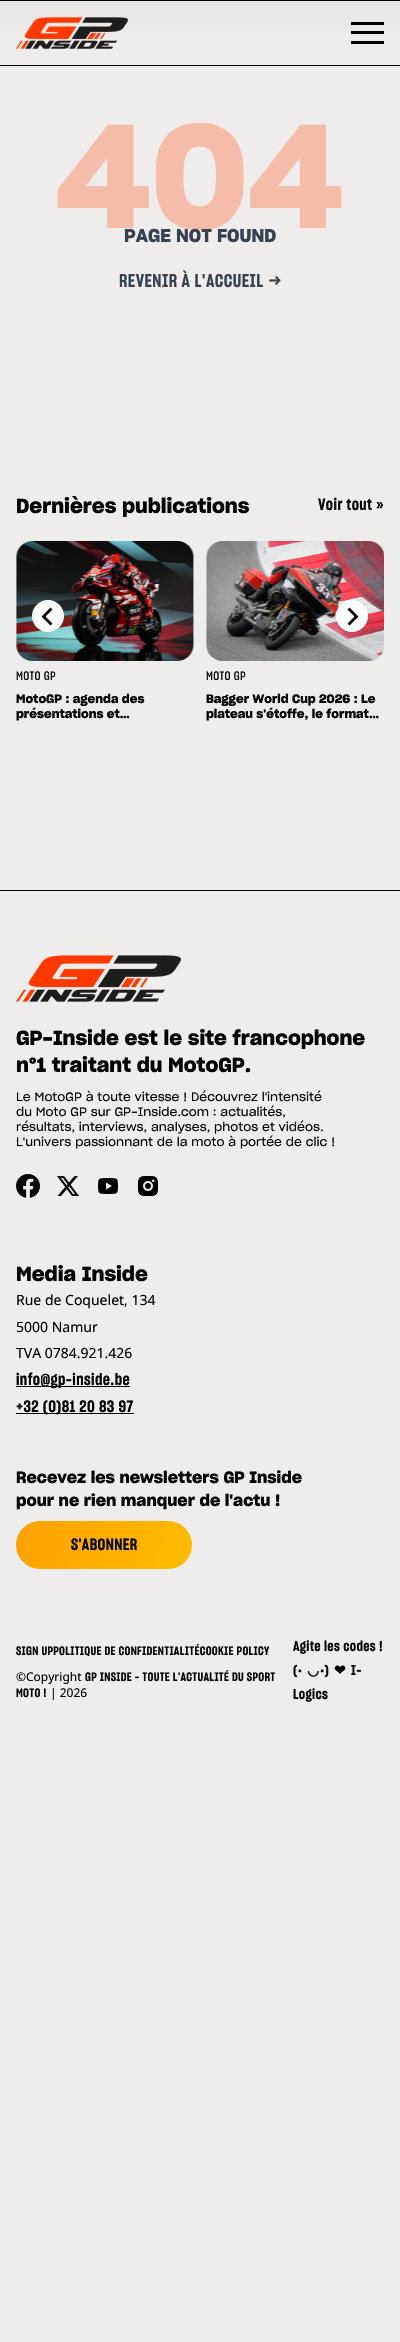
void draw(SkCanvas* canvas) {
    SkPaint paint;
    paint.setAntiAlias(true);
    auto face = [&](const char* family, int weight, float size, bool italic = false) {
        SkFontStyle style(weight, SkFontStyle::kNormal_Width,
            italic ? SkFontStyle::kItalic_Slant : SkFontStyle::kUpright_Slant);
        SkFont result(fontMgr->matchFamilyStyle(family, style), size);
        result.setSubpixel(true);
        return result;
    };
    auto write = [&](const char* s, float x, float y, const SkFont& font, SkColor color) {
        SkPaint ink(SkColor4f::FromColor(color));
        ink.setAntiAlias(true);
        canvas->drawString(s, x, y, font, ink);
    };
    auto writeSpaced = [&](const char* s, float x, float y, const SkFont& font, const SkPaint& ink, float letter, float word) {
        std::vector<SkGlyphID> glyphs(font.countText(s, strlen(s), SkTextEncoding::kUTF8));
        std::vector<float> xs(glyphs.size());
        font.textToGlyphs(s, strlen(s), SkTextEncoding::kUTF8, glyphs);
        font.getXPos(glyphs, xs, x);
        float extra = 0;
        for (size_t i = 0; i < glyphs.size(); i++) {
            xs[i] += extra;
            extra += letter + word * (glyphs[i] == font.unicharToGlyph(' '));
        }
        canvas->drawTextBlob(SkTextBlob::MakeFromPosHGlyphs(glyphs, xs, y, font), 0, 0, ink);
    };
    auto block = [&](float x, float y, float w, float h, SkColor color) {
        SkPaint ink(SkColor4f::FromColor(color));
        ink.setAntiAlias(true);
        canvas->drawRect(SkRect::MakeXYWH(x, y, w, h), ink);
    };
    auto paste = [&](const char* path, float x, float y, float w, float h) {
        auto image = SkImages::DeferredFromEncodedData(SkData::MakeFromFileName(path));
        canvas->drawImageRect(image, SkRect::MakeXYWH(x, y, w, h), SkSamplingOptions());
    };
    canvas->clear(SkColorSetRGB(239, 237, 235));
    {
        const SkColor colors[] = {SkColorSetRGB(231, 229, 228), SkColorSetRGB(239, 237, 235), SkColorSetRGB(239, 237, 235)};
        const float stops[] = {0, 0.7f, 1};
        const SkPoint ends[] = {{200, 0}, {200, 66}};
        paint.setShader(SkGradientShader::MakeLinear(ends, colors, stops, 3, SkTileMode::kClamp));
        paint.setAlpha(255);
    }
    canvas->drawRect(SkRect::MakeXYWH(0, 1, 400, 31), paint);
    block(0, 0, 400, 1, SK_ColorBLACK);
    block(0, 65, 400, 1, SK_ColorBLACK);
    paste("pic1.png", 16, 17, 112, 32);
    block(351, 31, 33, 3, SK_ColorBLACK);
    block(351, 22, 33, 3, SK_ColorBLACK);
    block(351, 41, 33, 3, SK_ColorBLACK);
    auto kFont1 = face("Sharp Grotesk", 600, 144);
    write("404", 56, 228, kFont1, SkColorSetRGB(244, 188, 169));
    auto kFont2 = face("Sharp Grotesk", 600, 18);
    write("PAGE NOT FOUND", 124, 242, kFont2, SkColorSetRGB(55, 65, 81));
    auto kFont3 = face("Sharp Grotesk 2", 600, 18);
    paint.setShader(nullptr);
    paint.setColor(SkColorSetRGB(55, 65, 81));
    writeSpaced("REVENIR À L'ACCUEIL →", 119, 287, kFont3, paint, 0.45f, 0);
    auto kFont4 = face("Sharp Grotesk", 600, 20);
    write("Dernières publications", 16, 513, kFont4, SK_ColorBLACK);
    auto kFont5 = face("Sharp Grotesk 2", 600, 16);
    paint.setColor(SK_ColorBLACK);
    writeSpaced("Voir tout »", 318, 510, kFont5, paint, 0.4f, 0);
    paste("pic2.png", 16, 541, 178, 120);
    paint.setColor(SK_ColorWHITE);
    canvas->drawCircle(48, 616, 16, paint);
    paint.setColor(SK_ColorBLACK);
    canvas->drawPath(SkPathBuilder().moveTo(50.5f, 607.5f).lineTo(52.5f, 609.5f).lineTo(45.5f, 616.5f).lineTo(52.5f, 623.5f).lineTo(50.5f, 625.5f).lineTo(41.5f, 616.5f).close().detach(), paint);
    paste("pic3.png", 206, 541, 178, 120);
    paint.setColor(SK_ColorWHITE);
    canvas->drawCircle(352, 616, 16, paint);
    paint.setColor(SK_ColorBLACK);
    canvas->drawPath(SkPathBuilder().moveTo(349.5f, 607.5f).lineTo(347.5f, 609.5f).lineTo(354.5f, 616.5f).lineTo(347.5f, 623.5f).lineTo(349.5f, 625.5f).lineTo(358.5f, 616.5f).close().detach(), paint);
    auto kFont6 = face("Sharp Grotesk", 500, 12);
    writeSpaced("MOTO GP", 16, 680, kFont6, paint, 0.3f, 0);
    auto kFont7 = face("Sharp Grotesk", 600, 12);
    write("MotoGP : agenda des", 16, 703, kFont7, SK_ColorBLACK);
    write("présentations et…", 16, 718, kFont7, SK_ColorBLACK);
    writeSpaced("MOTO GP", 206, 680, kFont6, paint, 0.3f, 0);
    write("Bagger World Cup 2026 : Le", 206, 703, kFont7, SK_ColorBLACK);
    write("plateau s'étoffe, le format…", 206, 718, kFont7, SK_ColorBLACK);
    block(0, 890, 400, 1, SK_ColorBLACK);
    paste("pic4.png", 16, 955, 165, 47);
    write("GP-Inside est le site francophone", 16, 1045, kFont4, SK_ColorBLACK);
    write("n°1 traitant du MotoGP.", 16, 1072, kFont4, SK_ColorBLACK);
    auto kFont8 = face("Sharp Grotesk", 400, 12);
    write("Le MotoGP à toute vitesse ! Découvrez l'intensité", 16, 1101, kFont8, SK_ColorBLACK);
    write("du Moto GP sur GP-Inside.com : actualités,", 16, 1116, kFont8, SK_ColorBLACK);
    write("résultats, interviews, analyses, photos et vidéos.", 16, 1131, kFont8, SK_ColorBLACK);
    write("L'univers passionnant de la moto à portée de clic !", 16, 1146, kFont8, SK_ColorBLACK);
    paste("pic5.png", 16, 1174, 24, 24);
    paste("pic6.png", 57, 1176, 22, 20);
    paste("pic7.png", 98, 1178, 20, 16);
    paste("pic8.png", 138, 1176, 20, 20);
    write("Media Inside", 16, 1281, kFont4, SK_ColorBLACK);
    auto kFont9 = face("Noto Sans", 400, 14);
    write("Rue de Coquelet, 134", 16, 1305, kFont9, SK_ColorBLACK);
    write("5000 Namur", 16, 1332, kFont9, SK_ColorBLACK);
    write("TVA 0784.921.426", 16, 1358, kFont9, SK_ColorBLACK);
    block(16, 1386, 114, 1, SK_ColorBLACK);
    writeSpaced("info@gp-inside.be", 16, 1385, kFont5, paint, 0.4f, 0);
    block(16, 1413, 118, 1, SK_ColorBLACK);
    writeSpaced("+32 (0)81 20 83 97", 16, 1412, kFont5, paint, 0.4f, 0);
    auto kFont10 = face("Sharp Grotesk", 600, 16);
    write("Recevez les newsletters GP Inside", 16, 1483, kFont10, SK_ColorBLACK);
    write("pour ne rien manquer de l'actu !", 16, 1506, kFont10, SK_ColorBLACK);
    {
        const SkColor colors[] = {SkColorSetRGB(255, 160, 0), SkColorSetRGB(255, 187, 0), SkColorSetRGB(255, 160, 0)};
        const float stops[] = {0, 0.5f, 1};
        const SkPoint ends[] = {{29, 1486}, {355, 1604}};
        paint.setShader(SkGradientShader::MakeLinear(ends, colors, stops, 3, SkTileMode::kClamp));
        paint.setAlpha(255);
    }
    canvas->drawRoundRect(SkRect::MakeXYWH(16, 1521, 176, 48), 24, 24, paint);
    paint.setShader(nullptr);
    paint.setColor(SK_ColorBLACK);
    writeSpaced("S'ABONNER", 71, 1550, kFont5, paint, 0.4f, 0);
    auto kFont11 = face("Sharp Grotesk 2", 600, 12);
    writeSpaced("SIGN UPPOLITIQUE DE CONFIDENTIALITÉCOOKIE POLICY", 16, 1655, kFont11, paint, 0.3f, 0);
    auto kFont12 = face("Noto Sans", 400, 12);
    write("©Copyright", 16, 1681, kFont12, SK_ColorBLACK);
    writeSpaced("GP INSIDE - TOUTE L'ACTUALITÉ DU SPORT", 85, 1681, kFont11, paint, 0.3f, 0);
    writeSpaced("MOTO !", 16, 1697, kFont11, paint, 0.3f, 0);
    write("| 2026", 50, 1697, kFont12, SK_ColorBLACK);
    auto kFont13 = face("Sharp Grotesk 2", 600, 14);
    writeSpaced("Agite les codes !", 293, 1651, kFont13, paint, 0.3f, 0);
    writeSpaced("(•", 293, 1675, kFont13, paint, 0.3f, 0);
    auto kFont14 = face("DejaVu Sans", 700, 14);
    writeSpaced("◡", 307, 1675, kFont14, paint, 0.3f, 0);
    writeSpaced("•)", 320, 1675, kFont13, paint, 0.3f, 0);
    writeSpaced("❤", 334, 1675, kFont14, paint, 0.3f, 0);
    writeSpaced("I-", 351, 1675, kFont13, paint, 0.3f, 0);
    writeSpaced("Logics", 293, 1699, kFont13, paint, 0.3f, 0);
}
